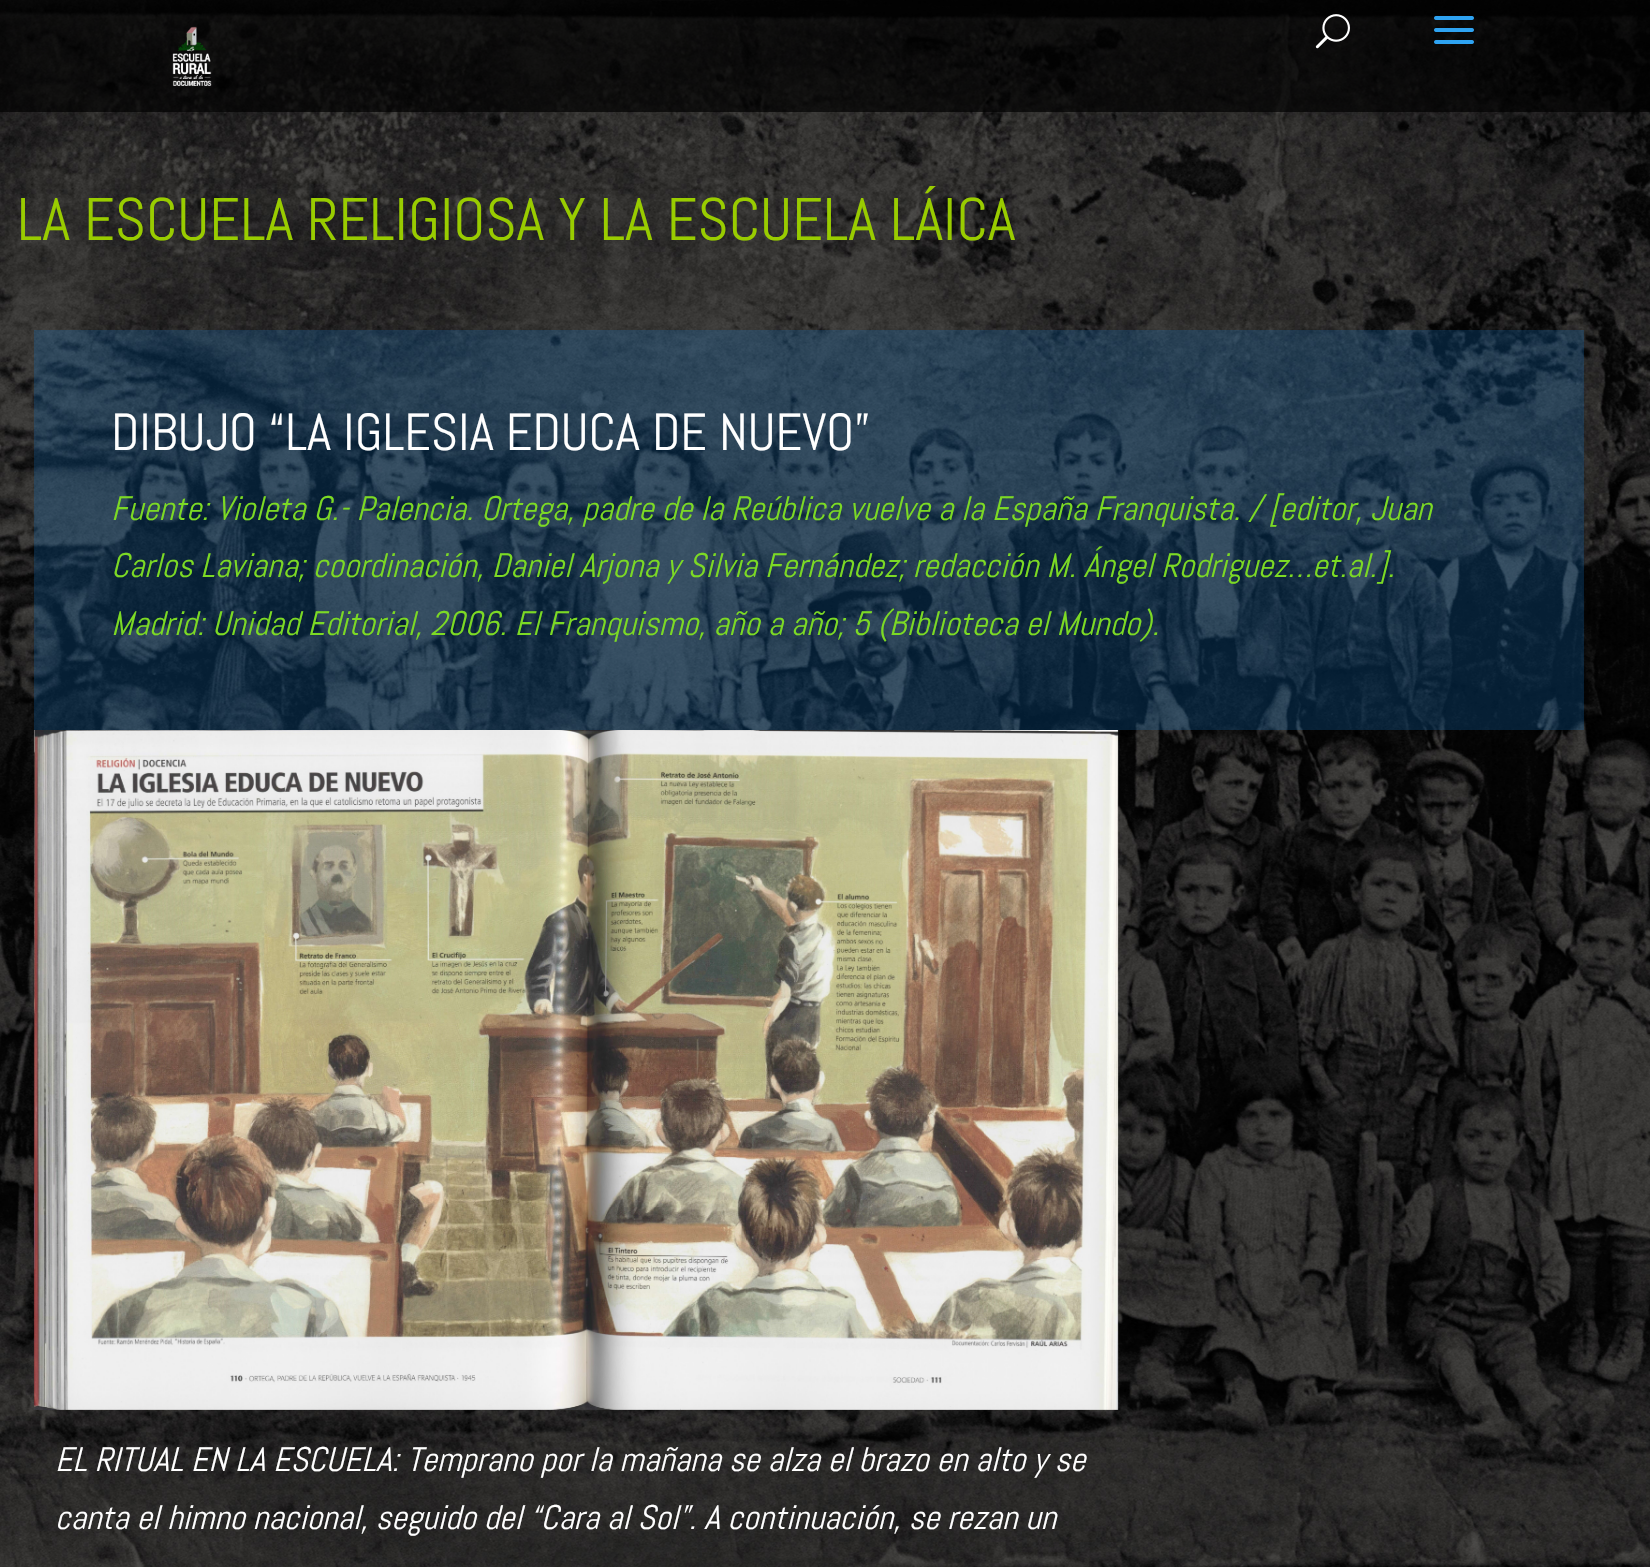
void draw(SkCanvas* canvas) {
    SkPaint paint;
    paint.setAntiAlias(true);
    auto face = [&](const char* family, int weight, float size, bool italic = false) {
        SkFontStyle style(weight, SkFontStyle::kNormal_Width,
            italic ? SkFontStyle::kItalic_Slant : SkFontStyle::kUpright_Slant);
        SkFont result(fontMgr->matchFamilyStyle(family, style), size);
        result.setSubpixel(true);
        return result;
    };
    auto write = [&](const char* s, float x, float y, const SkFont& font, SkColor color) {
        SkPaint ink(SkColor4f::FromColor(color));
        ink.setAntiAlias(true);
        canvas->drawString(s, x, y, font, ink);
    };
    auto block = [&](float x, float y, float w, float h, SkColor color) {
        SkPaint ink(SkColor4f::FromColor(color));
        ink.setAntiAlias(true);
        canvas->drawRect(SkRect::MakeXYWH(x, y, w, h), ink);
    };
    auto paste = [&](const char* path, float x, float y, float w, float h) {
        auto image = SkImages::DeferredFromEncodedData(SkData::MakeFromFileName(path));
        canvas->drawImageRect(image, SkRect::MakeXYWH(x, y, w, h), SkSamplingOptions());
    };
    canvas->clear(SK_ColorWHITE);
    paste("pic1.png", 0, 0, 1650, 1567);
    block(0, 0, 1650, 112, SkColorSetARGB(179, 0, 0, 0));
    paste("pic2.png", 172, 26, 40, 60);
    paste("pic3.png", 1315, 14, 35, 35);
    paste("pic4.png", 1434, 16, 40, 28);
    auto kFont1 = face("Abel", 400, 60);
    write("LA ESCUELA RELIGIOSA Y LA ESCUELA LÁICA", 17, 240, kFont1, SkColorSetRGB(153, 204, 0));
    block(34, 330, 1550, 400, SkColorSetARGB(64, 12, 113, 195));
    auto kFont2 = face("Abel", 400, 52);
    write("DIBUJO “LA IGLESIA EDUCA DE NUEVO”", 111, 450, kFont2, SK_ColorWHITE);
    auto kFont3 = face("Abel", 400, 34, true);
    write("Fuente: Violeta G.- Palencia. Ortega, padre de la Reública vuelve a la España Franquista. / [editor, Juan", 111, 520, kFont3, SkColorSetRGB(124, 218, 36));
    write("Carlos Laviana; coordinación, Daniel Arjona y Silvia Fernández; redacción M. Ángel Rodriguez…et.al.].", 111, 577, kFont3, SkColorSetRGB(124, 218, 36));
    write("Madrid: Unidad Editorial, 2006. El Franquismo, año a año; 5 (Biblioteca el Mundo).", 111, 635, kFont3, SkColorSetRGB(124, 218, 36));
    paste("pic5.png", 33, 730, 1086, 680);
    write("EL RITUAL EN LA ESCUELA: Temprano por la mañana se alza el brazo en alto y se", 55, 1471, kFont3, SK_ColorWHITE);
    write("canta el himno nacional, seguido del “Cara al Sol”. A continuación, se rezan un", 55, 1529, kFont3, SK_ColorWHITE);
}
